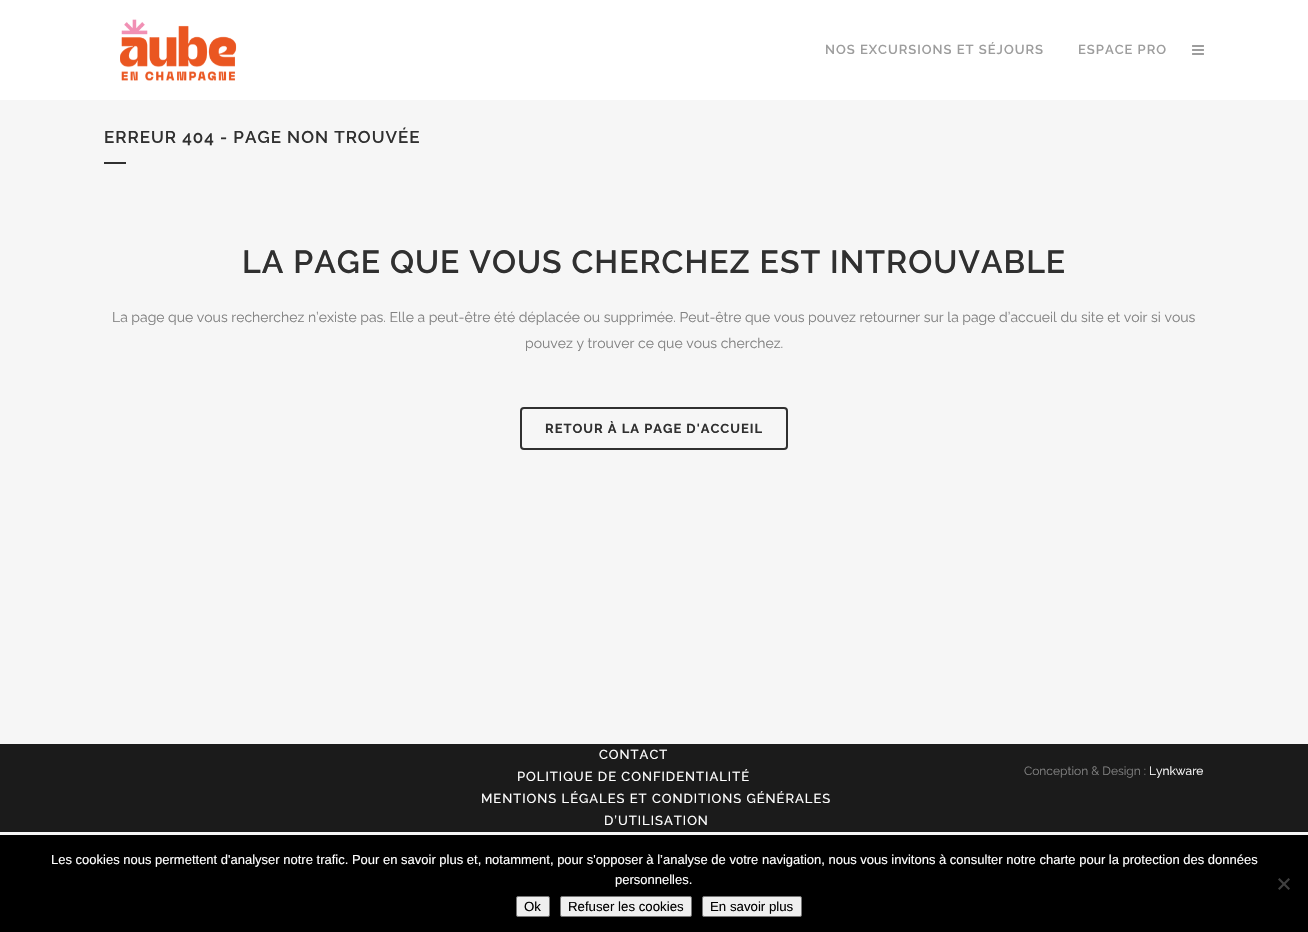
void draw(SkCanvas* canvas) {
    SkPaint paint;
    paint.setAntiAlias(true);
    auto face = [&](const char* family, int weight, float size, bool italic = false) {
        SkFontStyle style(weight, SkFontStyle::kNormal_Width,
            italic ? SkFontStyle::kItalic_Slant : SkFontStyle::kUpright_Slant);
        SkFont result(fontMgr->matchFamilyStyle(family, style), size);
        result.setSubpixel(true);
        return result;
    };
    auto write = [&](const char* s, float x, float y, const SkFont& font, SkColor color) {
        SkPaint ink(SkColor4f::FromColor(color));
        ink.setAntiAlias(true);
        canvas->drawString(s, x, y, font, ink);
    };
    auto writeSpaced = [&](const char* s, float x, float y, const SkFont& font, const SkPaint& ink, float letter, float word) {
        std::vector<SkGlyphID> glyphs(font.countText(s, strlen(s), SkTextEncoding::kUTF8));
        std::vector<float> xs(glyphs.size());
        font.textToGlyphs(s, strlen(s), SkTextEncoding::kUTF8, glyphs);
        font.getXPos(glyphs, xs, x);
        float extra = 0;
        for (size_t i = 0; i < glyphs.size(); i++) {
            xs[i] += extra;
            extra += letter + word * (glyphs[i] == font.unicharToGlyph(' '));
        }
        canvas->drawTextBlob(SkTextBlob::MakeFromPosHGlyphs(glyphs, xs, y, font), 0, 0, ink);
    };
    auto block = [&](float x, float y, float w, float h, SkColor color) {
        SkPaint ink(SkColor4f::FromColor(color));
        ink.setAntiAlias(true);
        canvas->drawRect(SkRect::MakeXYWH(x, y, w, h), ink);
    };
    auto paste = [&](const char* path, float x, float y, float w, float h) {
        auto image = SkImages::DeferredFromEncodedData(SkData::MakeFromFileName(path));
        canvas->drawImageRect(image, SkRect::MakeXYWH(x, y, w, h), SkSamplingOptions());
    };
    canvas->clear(SkColorSetRGB(246, 246, 246));
    block(0, 0, 1308, 100, SK_ColorWHITE);
    paste("pic1.png", 120, 19, 117, 62);
    auto kFont1 = face("Raleway", 600, 13);
    paint.setColor(SkColorSetRGB(157, 157, 157));
    writeSpaced("NOS EXCURSIONS ET SÉJOURS", 825, 54, kFont1, paint, 1, 0);
    writeSpaced("ESPACE PRO", 1078, 54, kFont1, paint, 1, 0);
    paste("pic2.png", 1192, 45, 12, 10);
    auto kFont2 = face("Raleway", 600, 17);
    paint.setColor(SkColorSetRGB(48, 48, 48));
    writeSpaced("ERREUR 404 - PAGE NON TROUVÉE", 104, 143, kFont2, paint, 1, 0);
    block(104, 162, 22, 2, SkColorSetRGB(48, 48, 48));
    auto kFont3 = face("Raleway", 600, 32);
    writeSpaced("LA PAGE QUE VOUS CHERCHEZ EST INTROUVABLE", 242, 273, kFont3, paint, 1, 0);
    auto kFont4 = face("Raleway", 400, 14);
    write("La page que vous recherchez n’existe pas. Elle a peut-être été déplacée ou supprimée. Peut-être que vous pouvez retourner sur la page d’accueil du site et voir si vous", 112, 322, kFont4, SkColorSetRGB(129, 129, 129));
    write("pouvez y trouver ce que vous cherchez.", 525, 348, kFont4, SkColorSetRGB(129, 129, 129));
    paint.setStyle(SkPaint::kStroke_Style);
    paint.setStrokeWidth(2);
    canvas->drawRoundRect(SkRect::MakeXYWH(521, 408, 266, 41), 3, 3, paint);
    auto kFont5 = face("Raleway", 700, 13);
    paint.setStyle(SkPaint::kFill_Style);
    writeSpaced("RETOUR À LA PAGE D'ACCUEIL", 545, 433, kFont5, paint, 1, 0);
    block(0, 744, 1308, 88, SkColorSetRGB(27, 27, 27));
    auto kFont6 = face("Raleway", 500, 13);
    paint.setColor(SK_ColorWHITE);
    writeSpaced("CONTACT", 599, 759, kFont6, paint, 1, 0);
    writeSpaced("POLITIQUE DE CONFIDENTIALITÉ", 517, 781, kFont6, paint, 1, 0);
    writeSpaced("MENTIONS LÉGALES ET CONDITIONS GÉNÉRALES", 481, 803, kFont6, paint, 1, 0);
    writeSpaced("D’UTILISATION", 604, 825, kFont6, paint, 1, 0);
    auto kFont7 = face("Raleway", 400, 12);
    write("Conception & Design :", 1024, 775, kFont7, SkColorSetRGB(129, 129, 129));
    write("Lynkware", 1149, 775, kFont7, SK_ColorWHITE);
    block(0, 835, 1308, 97, SK_ColorBLACK);
    auto kFont8 = face("Liberation Sans", 400, 13);
    write("Les cookies nous permettent d'analyser notre trafic. Pour en savoir plus et, notamment, pour s'opposer à l’analyse de votre navigation, nous vous invitons à consulter notre charte pour la protection des données", 51, 864, kFont8, SK_ColorWHITE);
    write("personnelles.", 615, 884, kFont8, SK_ColorWHITE);
    paint.setColor(SkColorSetRGB(64, 64, 64));
    canvas->drawPath(SkPathBuilder().moveTo(1288.5f, 878).lineTo(1290, 879.5f).lineTo(1279.5f, 890).lineTo(1278, 888.5f).close().detach(), paint);
    canvas->drawPath(SkPathBuilder().moveTo(1278, 879.5f).lineTo(1279.5f, 878).lineTo(1290, 888.5f).lineTo(1288.5f, 890).close().detach(), paint);
    paint.setColor(SkColorSetRGB(239, 239, 239));
    canvas->drawRoundRect(SkRect::MakeXYWH(516.5f, 896.5f, 33, 20), 1.5f, 1.5f, paint);
    paint.setStyle(SkPaint::kStroke_Style);
    paint.setStrokeWidth(1);
    paint.setColor(SkColorSetRGB(118, 118, 118));
    canvas->drawRoundRect(SkRect::MakeXYWH(516.5f, 896.5f, 33, 20), 1.5f, 1.5f, paint);
    auto kFont9 = face("Liberation Sans", 400, 13.25f);
    write("Ok", 524, 911, kFont9, SK_ColorBLACK);
    paint.setStyle(SkPaint::kFill_Style);
    paint.setColor(SkColorSetRGB(239, 239, 239));
    canvas->drawRoundRect(SkRect::MakeXYWH(560.5f, 896.5f, 131, 20), 1.5f, 1.5f, paint);
    paint.setStyle(SkPaint::kStroke_Style);
    paint.setColor(SkColorSetRGB(118, 118, 118));
    canvas->drawRoundRect(SkRect::MakeXYWH(560.5f, 896.5f, 131, 20), 1.5f, 1.5f, paint);
    write("Refuser les cookies", 568, 911, kFont9, SK_ColorBLACK);
    paint.setStyle(SkPaint::kFill_Style);
    paint.setColor(SkColorSetRGB(239, 239, 239));
    canvas->drawRoundRect(SkRect::MakeXYWH(702.5f, 896.5f, 99, 20), 1.5f, 1.5f, paint);
    paint.setStyle(SkPaint::kStroke_Style);
    paint.setColor(SkColorSetRGB(118, 118, 118));
    canvas->drawRoundRect(SkRect::MakeXYWH(702.5f, 896.5f, 99, 20), 1.5f, 1.5f, paint);
    write("En savoir plus", 710, 911, kFont9, SK_ColorBLACK);
}
